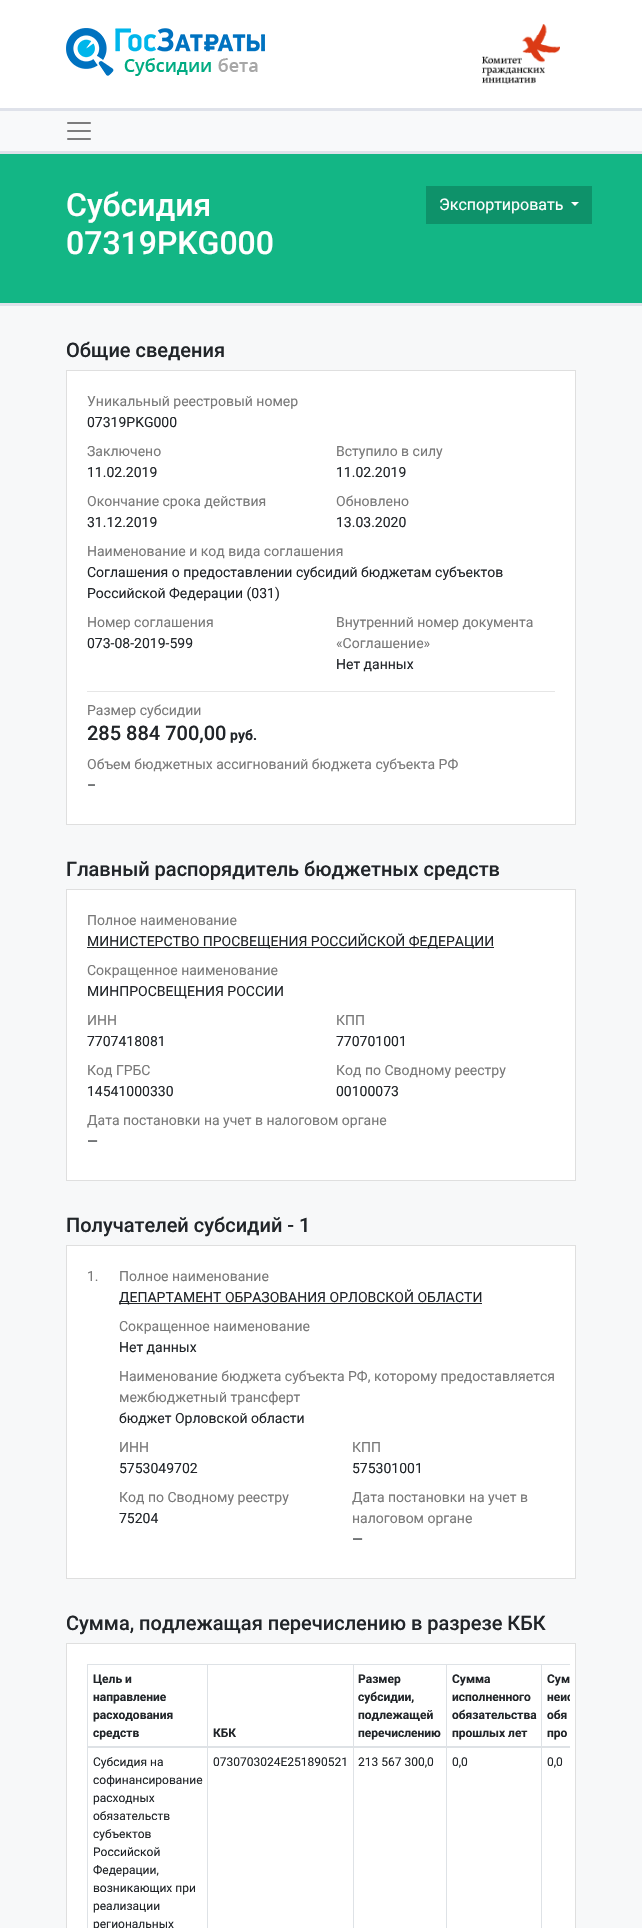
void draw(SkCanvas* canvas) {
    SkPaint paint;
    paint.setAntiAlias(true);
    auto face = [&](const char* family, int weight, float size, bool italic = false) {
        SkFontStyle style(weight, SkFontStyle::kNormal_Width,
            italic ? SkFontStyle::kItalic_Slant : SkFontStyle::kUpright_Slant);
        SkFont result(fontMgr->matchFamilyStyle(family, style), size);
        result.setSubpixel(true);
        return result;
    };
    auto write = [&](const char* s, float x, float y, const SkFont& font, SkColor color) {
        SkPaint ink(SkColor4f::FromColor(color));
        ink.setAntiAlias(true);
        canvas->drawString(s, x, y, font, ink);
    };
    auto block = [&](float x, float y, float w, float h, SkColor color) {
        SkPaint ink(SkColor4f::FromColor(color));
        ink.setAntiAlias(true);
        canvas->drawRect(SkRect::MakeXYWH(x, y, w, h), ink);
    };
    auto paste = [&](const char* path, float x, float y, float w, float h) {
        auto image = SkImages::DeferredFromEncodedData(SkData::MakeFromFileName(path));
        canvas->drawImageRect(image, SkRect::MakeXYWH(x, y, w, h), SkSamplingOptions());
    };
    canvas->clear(SkColorSetRGB(19, 182, 133));
    block(0, 0, 642, 108, SK_ColorWHITE);
    paste("pic1.png", 66, 28, 199, 48);
    paste("pic2.png", 482, 24, 78, 60);
    block(0, 111, 642, 40, SkColorSetRGB(248, 249, 250));
    block(0, 108, 642, 3, SkColorSetRGB(223, 226, 234));
    block(0, 151, 642, 3, SkColorSetRGB(223, 226, 234));
    paste("pic3.png", 67, 122, 24, 18);
    block(0, 303, 642, 3, SkColorSetRGB(223, 226, 234));
    auto kFont1 = face("Roboto", 500, 32);
    write("Субсидия", 66, 216, kFont1, SK_ColorWHITE);
    write("07319PKG000", 66, 254, kFont1, SK_ColorWHITE);
    block(426, 186, 166, 38, SkColorSetRGB(14, 146, 106));
    auto kFont2 = face("Roboto", 400, 16);
    write("Экспортировать", 439, 210, kFont2, SK_ColorWHITE);
    paint.setColor(SK_ColorWHITE);
    canvas->drawPath(SkPathBuilder().moveTo(571, 202).lineTo(579, 202).lineTo(575, 206).close().detach(), paint);
    block(0, 306, 642, 1622, SkColorSetRGB(247, 248, 249));
    auto kFont3 = face("Roboto", 500, 20);
    write("Общие сведения", 66, 357, kFont3, SkColorSetRGB(33, 37, 41));
    canvas->drawRect(SkRect::MakeXYWH(66.5f, 370.5f, 509, 454), paint);
    paint.setStyle(SkPaint::kStroke_Style);
    paint.setStrokeWidth(1);
    paint.setColor(SkColorSetRGB(223, 223, 223));
    canvas->drawRect(SkRect::MakeXYWH(66.5f, 370.5f, 509, 454), paint);
    auto kFont4 = face("Roboto", 400, 14);
    write("Уникальный реестровый номер", 87, 406, kFont4, SkColorSetRGB(121, 121, 121));
    write("07319PKG000", 87, 427, kFont4, SkColorSetRGB(33, 37, 41));
    write("Заключено", 87, 456, kFont4, SkColorSetRGB(121, 121, 121));
    write("11.02.2019", 87, 477, kFont4, SkColorSetRGB(33, 37, 41));
    write("Вступило в силу", 336, 456, kFont4, SkColorSetRGB(121, 121, 121));
    write("11.02.2019", 336, 477, kFont4, SkColorSetRGB(33, 37, 41));
    write("Окончание срока действия", 87, 506, kFont4, SkColorSetRGB(121, 121, 121));
    write("31.12.2019", 87, 527, kFont4, SkColorSetRGB(33, 37, 41));
    write("Обновлено", 336, 506, kFont4, SkColorSetRGB(121, 121, 121));
    write("13.03.2020", 336, 527, kFont4, SkColorSetRGB(33, 37, 41));
    write("Наименование и код вида соглашения", 87, 556, kFont4, SkColorSetRGB(121, 121, 121));
    write("Соглашения о предоставлении субсидий бюджетам субъектов", 87, 577, kFont4, SkColorSetRGB(33, 37, 41));
    write("Российской Федерации (031)", 87, 598, kFont4, SkColorSetRGB(33, 37, 41));
    write("Номер соглашения", 87, 627, kFont4, SkColorSetRGB(121, 121, 121));
    write("073-08-2019-599", 87, 648, kFont4, SkColorSetRGB(33, 37, 41));
    write("Внутренний номер документа", 336, 627, kFont4, SkColorSetRGB(121, 121, 121));
    write("«Соглашение»", 336, 648, kFont4, SkColorSetRGB(121, 121, 121));
    write("Нет данных", 336, 669, kFont4, SkColorSetRGB(33, 37, 41));
    block(87, 691, 468, 1, SkColorSetRGB(230, 230, 230));
    write("Размер субсидии", 87, 715, kFont4, SkColorSetRGB(121, 121, 121));
    write("285 884 700,00", 87, 740, kFont3, SkColorSetRGB(33, 37, 41));
    auto kFont5 = face("Roboto", 700, 14);
    write("руб.", 230, 740, kFont5, SkColorSetRGB(33, 37, 41));
    write("Объем бюджетных ассигнований бюджета субъекта РФ", 87, 769, kFont4, SkColorSetRGB(121, 121, 121));
    write("–", 87, 790, kFont4, SkColorSetRGB(33, 37, 41));
    write("Главный распорядитель бюджетных средств", 66, 876, kFont3, SkColorSetRGB(33, 37, 41));
    paint.setStyle(SkPaint::kFill_Style);
    paint.setColor(SK_ColorWHITE);
    canvas->drawRect(SkRect::MakeXYWH(66.5f, 889.5f, 509, 291), paint);
    paint.setStyle(SkPaint::kStroke_Style);
    paint.setColor(SkColorSetRGB(223, 223, 223));
    canvas->drawRect(SkRect::MakeXYWH(66.5f, 889.5f, 509, 291), paint);
    write("Полное наименование", 87, 925, kFont4, SkColorSetRGB(121, 121, 121));
    block(87, 947, 407, 1, SkColorSetRGB(33, 37, 41));
    write("МИНИСТЕРСТВО ПРОСВЕЩЕНИЯ РОССИЙСКОЙ ФЕДЕРАЦИИ", 87, 946, kFont4, SkColorSetRGB(33, 37, 41));
    write("Сокращенное наименование", 87, 975, kFont4, SkColorSetRGB(121, 121, 121));
    write("МИНПРОСВЕЩЕНИЯ РОССИИ", 87, 996, kFont4, SkColorSetRGB(33, 37, 41));
    write("ИНН", 87, 1025, kFont4, SkColorSetRGB(121, 121, 121));
    write("7707418081", 87, 1046, kFont4, SkColorSetRGB(33, 37, 41));
    write("КПП", 336, 1025, kFont4, SkColorSetRGB(121, 121, 121));
    write("770701001", 336, 1046, kFont4, SkColorSetRGB(33, 37, 41));
    write("Код ГРБС", 87, 1075, kFont4, SkColorSetRGB(121, 121, 121));
    write("14541000330", 87, 1096, kFont4, SkColorSetRGB(33, 37, 41));
    write("Код по Cводному реестру", 336, 1075, kFont4, SkColorSetRGB(121, 121, 121));
    write("00100073", 336, 1096, kFont4, SkColorSetRGB(33, 37, 41));
    write("Дата постановки на учет в налоговом органе", 87, 1125, kFont4, SkColorSetRGB(121, 121, 121));
    write("—", 87, 1146, kFont4, SkColorSetRGB(33, 37, 41));
    write("Получателей субсидий - 1", 66, 1232, kFont3, SkColorSetRGB(33, 37, 41));
    paint.setStyle(SkPaint::kFill_Style);
    paint.setColor(SK_ColorWHITE);
    canvas->drawRect(SkRect::MakeXYWH(66.5f, 1245.5f, 509, 333), paint);
    paint.setStyle(SkPaint::kStroke_Style);
    paint.setColor(SkColorSetRGB(223, 223, 223));
    canvas->drawRect(SkRect::MakeXYWH(66.5f, 1245.5f, 509, 333), paint);
    write("1.", 87, 1281, kFont4, SkColorSetRGB(121, 121, 121));
    write("Полное наименование", 119, 1281, kFont4, SkColorSetRGB(121, 121, 121));
    block(119, 1303, 363, 1, SkColorSetRGB(33, 37, 41));
    write("ДЕПАРТАМЕНТ ОБРАЗОВАНИЯ ОРЛОВСКОЙ ОБЛАСТИ", 119, 1302, kFont4, SkColorSetRGB(33, 37, 41));
    write("Сокращенное наименование", 119, 1331, kFont4, SkColorSetRGB(121, 121, 121));
    write("Нет данных", 119, 1352, kFont4, SkColorSetRGB(33, 37, 41));
    write("Наименование бюджета субъекта РФ, которому предоставляется", 119, 1381, kFont4, SkColorSetRGB(121, 121, 121));
    write("межбюджетный трансферт", 119, 1402, kFont4, SkColorSetRGB(121, 121, 121));
    write("бюджет Орловской области", 119, 1423, kFont4, SkColorSetRGB(33, 37, 41));
    write("ИНН", 119, 1452, kFont4, SkColorSetRGB(121, 121, 121));
    write("5753049702", 119, 1473, kFont4, SkColorSetRGB(33, 37, 41));
    write("КПП", 352, 1452, kFont4, SkColorSetRGB(121, 121, 121));
    write("575301001", 352, 1473, kFont4, SkColorSetRGB(33, 37, 41));
    write("Код по Cводному реестру", 119, 1502, kFont4, SkColorSetRGB(121, 121, 121));
    write("75204", 119, 1523, kFont4, SkColorSetRGB(33, 37, 41));
    write("Дата постановки на учет в", 352, 1502, kFont4, SkColorSetRGB(121, 121, 121));
    write("налоговом органе", 352, 1523, kFont4, SkColorSetRGB(121, 121, 121));
    write("—", 352, 1544, kFont4, SkColorSetRGB(33, 37, 41));
    write("Сумма, подлежащая перечислению в разрезе КБК", 66, 1630, kFont3, SkColorSetRGB(33, 37, 41));
    paint.setStyle(SkPaint::kFill_Style);
    paint.setColor(SK_ColorWHITE);
    canvas->drawRect(SkRect::MakeXYWH(66.5f, 1643.5f, 509, 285), paint);
    paint.setStyle(SkPaint::kStroke_Style);
    paint.setColor(SkColorSetRGB(223, 223, 223));
    canvas->drawRect(SkRect::MakeXYWH(66.5f, 1643.5f, 509, 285), paint);
    block(87, 1664, 483, 1, SkColorSetRGB(222, 226, 230));
    block(87, 1664, 1, 264, SkColorSetRGB(222, 226, 230));
    auto kFont6 = face("Roboto", 700, 12);
    write("Цель и", 93, 1683, kFont6, SkColorSetRGB(33, 37, 41));
    write("направление", 93, 1701, kFont6, SkColorSetRGB(33, 37, 41));
    write("расходования", 93, 1719, kFont6, SkColorSetRGB(33, 37, 41));
    write("средств", 93, 1737, kFont6, SkColorSetRGB(33, 37, 41));
    write("КБК", 213, 1737, kFont6, SkColorSetRGB(33, 37, 41));
    write("Размер", 358, 1683, kFont6, SkColorSetRGB(33, 37, 41));
    write("субсидии,", 358, 1701, kFont6, SkColorSetRGB(33, 37, 41));
    write("подлежащей", 358, 1719, kFont6, SkColorSetRGB(33, 37, 41));
    write("перечислению", 358, 1737, kFont6, SkColorSetRGB(33, 37, 41));
    write("Сумма", 452, 1683, kFont6, SkColorSetRGB(33, 37, 41));
    write("исполненного", 452, 1701, kFont6, SkColorSetRGB(33, 37, 41));
    write("обязательства", 452, 1719, kFont6, SkColorSetRGB(33, 37, 41));
    write("прошлых лет", 452, 1737, kFont6, SkColorSetRGB(33, 37, 41));
    block(207, 1664, 1, 264, SkColorSetRGB(222, 226, 230));
    block(353, 1664, 1, 264, SkColorSetRGB(222, 226, 230));
    block(446, 1664, 1, 264, SkColorSetRGB(222, 226, 230));
    block(541, 1664, 1, 264, SkColorSetRGB(222, 226, 230));
    block(87, 1746, 483, 2, SkColorSetRGB(222, 226, 230));
    write("Сум", 547, 1683, kFont6, SkColorSetRGB(33, 37, 41));
    canvas->save();
    canvas->clipRect(SkRect::MakeXYWH(72, 1664, 498, 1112));
    write("неис", 547, 1701, kFont6, SkColorSetRGB(33, 37, 41));
    canvas->restore();
    write("обя", 547, 1719, kFont6, SkColorSetRGB(33, 37, 41));
    write("про", 547, 1737, kFont6, SkColorSetRGB(33, 37, 41));
    auto kFont7 = face("Roboto", 400, 12);
    write("Субсидия на", 93, 1766, kFont7, SkColorSetRGB(33, 37, 41));
    write("софинансирование", 93, 1784, kFont7, SkColorSetRGB(33, 37, 41));
    write("расходных", 93, 1802, kFont7, SkColorSetRGB(33, 37, 41));
    write("обязательств", 93, 1820, kFont7, SkColorSetRGB(33, 37, 41));
    write("субъектов", 93, 1838, kFont7, SkColorSetRGB(33, 37, 41));
    write("Российской", 93, 1856, kFont7, SkColorSetRGB(33, 37, 41));
    write("Федерации,", 93, 1874, kFont7, SkColorSetRGB(33, 37, 41));
    write("возникающих при", 93, 1892, kFont7, SkColorSetRGB(33, 37, 41));
    write("реализации", 93, 1910, kFont7, SkColorSetRGB(33, 37, 41));
    write("региональных", 93, 1928, kFont7, SkColorSetRGB(33, 37, 41));
    write("0730703024E251890521", 213, 1766, kFont7, SkColorSetRGB(33, 37, 41));
    write("213 567 300,0", 358, 1766, kFont7, SkColorSetRGB(33, 37, 41));
    write("0,0", 452, 1766, kFont7, SkColorSetRGB(33, 37, 41));
    write("0,0", 547, 1766, kFont7, SkColorSetRGB(33, 37, 41));
}
